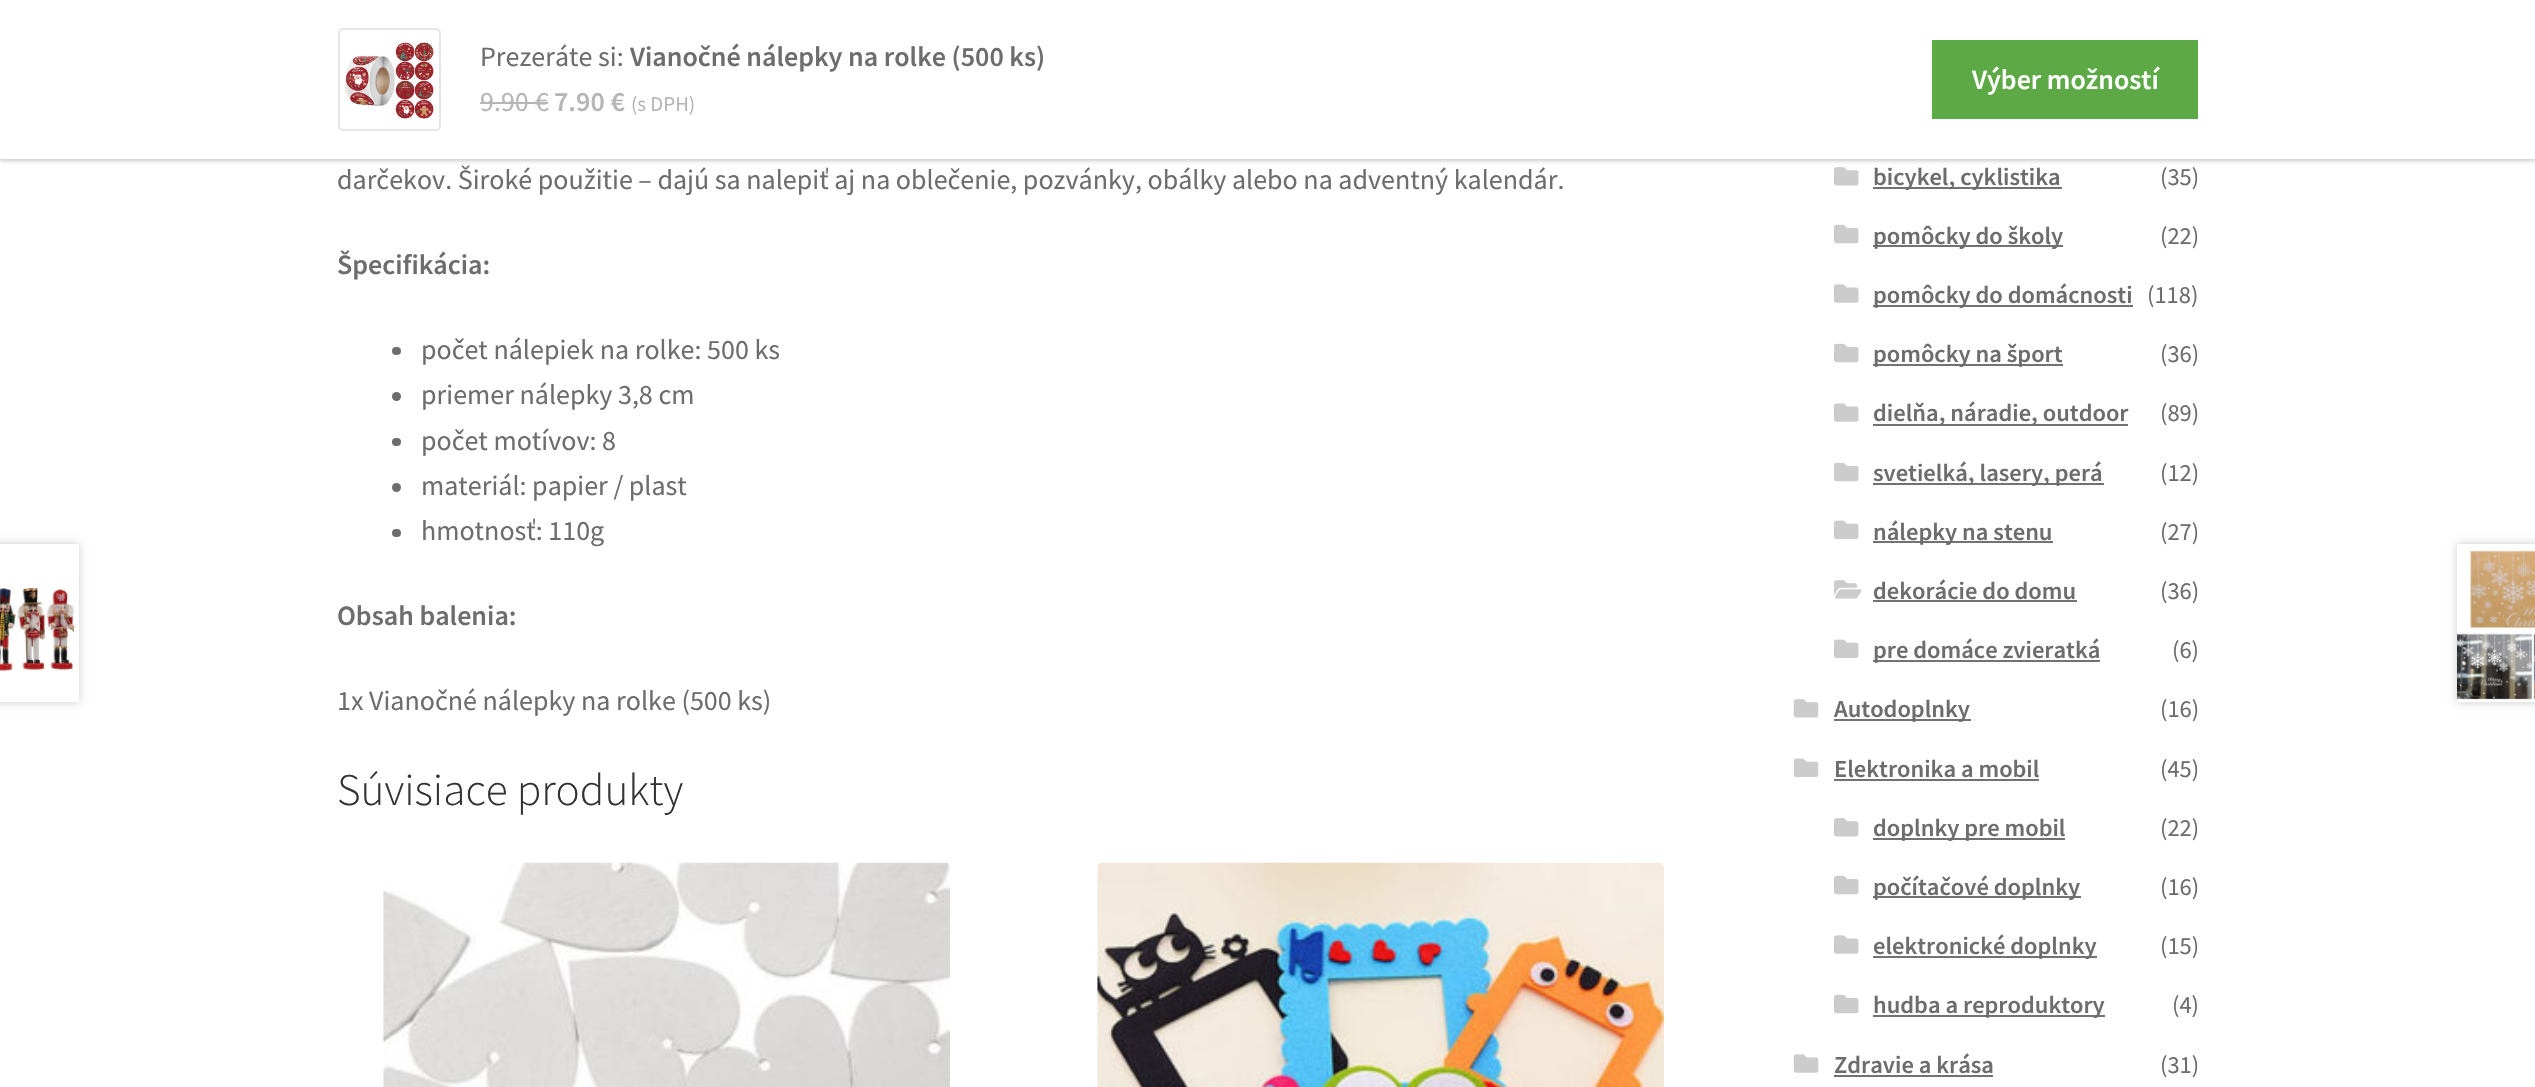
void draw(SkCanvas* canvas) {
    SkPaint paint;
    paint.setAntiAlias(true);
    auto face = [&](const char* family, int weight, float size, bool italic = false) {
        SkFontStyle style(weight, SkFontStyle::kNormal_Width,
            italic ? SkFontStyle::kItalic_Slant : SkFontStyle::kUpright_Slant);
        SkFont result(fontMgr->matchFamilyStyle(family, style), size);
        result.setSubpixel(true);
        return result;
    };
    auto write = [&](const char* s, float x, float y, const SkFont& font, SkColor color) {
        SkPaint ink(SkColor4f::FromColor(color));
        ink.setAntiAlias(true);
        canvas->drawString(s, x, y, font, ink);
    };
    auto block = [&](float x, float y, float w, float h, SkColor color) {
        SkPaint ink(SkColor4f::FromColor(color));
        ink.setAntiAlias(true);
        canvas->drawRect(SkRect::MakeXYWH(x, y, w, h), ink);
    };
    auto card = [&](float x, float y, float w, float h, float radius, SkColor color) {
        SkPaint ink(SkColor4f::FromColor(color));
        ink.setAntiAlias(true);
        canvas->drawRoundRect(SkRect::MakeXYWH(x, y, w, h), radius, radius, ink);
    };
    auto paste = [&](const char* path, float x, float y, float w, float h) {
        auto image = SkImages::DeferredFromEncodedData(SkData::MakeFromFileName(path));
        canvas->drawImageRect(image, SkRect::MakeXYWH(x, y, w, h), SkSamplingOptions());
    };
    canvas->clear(SK_ColorWHITE);
    paste("pic6.png", 1834, 167, 25, 19);
    paint.setColor(SkColorSetARGB(51, 0, 0, 0));
    paint.setMaskFilter(SkMaskFilter::MakeBlur(kNormal_SkBlurStyle, 2));
    canvas->drawRect(SkRect::MakeXYWH(0, 2, 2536, 159), paint);
    paint.setMaskFilter(nullptr);
    block(0, 0, 2535, 159, SK_ColorWHITE);
    paint.setStyle(SkPaint::kStroke_Style);
    paint.setStrokeWidth(2);
    paint.setColor(SkColorSetRGB(230, 230, 230));
    canvas->drawRoundRect(SkRect::MakeXYWH(339, 29, 101, 101), 4, 4, paint);
    paste("pic1.png", 345, 42, 89, 77);
    auto kFont1 = face("Source Sans Pro", 400, 28);
    write("Prezeráte si:", 480, 66, kFont1, SkColorSetRGB(109, 109, 109));
    auto kFont2 = face("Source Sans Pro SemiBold", 600, 28);
    write("Vianočné nálepky na rolke (500 ks)", 630, 66, kFont2, SkColorSetRGB(109, 109, 109));
    write("9.90", 480, 111, kFont1, SkColorSetRGB(182, 182, 182));
    block(480, 102, 56, 2, SkColorSetRGB(182, 182, 182));
    write("€", 535, 111, kFont1, SkColorSetRGB(182, 182, 182));
    block(536, 102, 12, 2, SkColorSetRGB(182, 182, 182));
    write("7.90 €", 554, 111, kFont2, SkColorSetRGB(182, 182, 182));
    auto kFont3 = face("Source Sans Pro", 400, 21);
    write("(s DPH)", 631, 111, kFont3, SkColorSetRGB(182, 182, 182));
    block(1932, 40, 266, 79, SkColorSetRGB(93, 169, 70));
    write("Výber možností", 1972, 89, kFont2, SK_ColorWHITE);
    write("darčekov. Široké použitie – dajú sa nalepiť aj na oblečenie, pozvánky, obálky alebo na adventný kalendár.", 337, 189, kFont1, SkColorSetRGB(109, 109, 109));
    write("Špecifikácia:", 337, 274, kFont2, SkColorSetRGB(109, 109, 109));
    card(392, 347, 9, 8, 4, SkColorSetRGB(109, 109, 109));
    write("počet nálepiek na rolke: 500 ks", 421, 359, kFont1, SkColorSetRGB(109, 109, 109));
    paint.setStyle(SkPaint::kFill_Style);
    paint.setColor(SkColorSetRGB(109, 109, 109));
    canvas->drawCircle(396.5f, 396.5f, 4.5f, paint);
    write("priemer nálepky 3,8 cm", 421, 404, kFont1, SkColorSetRGB(109, 109, 109));
    card(392, 438, 9, 8, 4, SkColorSetRGB(109, 109, 109));
    write("počet motívov: 8", 421, 450, kFont1, SkColorSetRGB(109, 109, 109));
    canvas->drawCircle(396.5f, 487.5f, 4.5f, paint);
    write("materiál: papier / plast", 421, 495, kFont1, SkColorSetRGB(109, 109, 109));
    card(392, 529, 9, 8, 4, SkColorSetRGB(109, 109, 109));
    write("hmotnosť: 110g", 421, 540, kFont1, SkColorSetRGB(109, 109, 109));
    paint.setColor(SkColorSetARGB(51, 0, 0, 0));
    paint.setMaskFilter(SkMaskFilter::MakeBlur(kNormal_SkBlurStyle, 4.5f));
    canvas->drawRect(SkRect::MakeXYWH(-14, 544, 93, 158), paint);
    paint.setMaskFilter(nullptr);
    block(0, 544, 79, 158, SK_ColorWHITE);
    paste("pic2.png", 0, 587, 77, 85);
    paint.setMaskFilter(SkMaskFilter::MakeBlur(kNormal_SkBlurStyle, 4.5f));
    canvas->drawRect(SkRect::MakeXYWH(2457, 544, 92, 158), paint);
    paint.setMaskFilter(nullptr);
    block(2457, 544, 78, 158, SK_ColorWHITE);
    paste("pic3.png", 2457, 549, 78, 151);
    write("Obsah balenia:", 337, 625, kFont2, SkColorSetRGB(109, 109, 109));
    write("1x Vianočné nálepky na rolke (500 ks)", 337, 710, kFont1, SkColorSetRGB(109, 109, 109));
    auto kFont4 = face("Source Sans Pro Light", 300, 45.25f);
    write("Súvisiace produkty", 337, 805, kFont4, SkColorSetRGB(51, 51, 51));
    paste("pic4.png", 383, 862, 567, 225);
    paste("pic5.png", 1097, 862, 568, 225);
    block(1873, 187, 189, 2, SkColorSetRGB(114, 114, 114));
    auto kFont5 = face("Source Sans Pro SemiBold", 600, 24.5f);
    write("bicykel, cyklistika", 1873, 185, kFont5, SkColorSetRGB(109, 109, 109));
    auto kFont6 = face("Source Sans Pro", 400, 24.5f);
    write("(35)", 2160, 185, kFont6, SkColorSetRGB(109, 109, 109));
    paste("pic7.png", 1834, 224, 25, 20);
    block(1873, 245, 190, 2, SkColorSetRGB(114, 114, 114));
    write("pomôcky do školy", 1873, 244, kFont5, SkColorSetRGB(109, 109, 109));
    write("(22)", 2160, 244, kFont6, SkColorSetRGB(109, 109, 109));
    paste("pic8.png", 1834, 284, 25, 19);
    block(1873, 305, 260, 2, SkColorSetRGB(114, 114, 114));
    write("pomôcky do domácnosti", 1873, 303, kFont5, SkColorSetRGB(109, 109, 109));
    write("(118)", 2147, 303, kFont6, SkColorSetRGB(109, 109, 109));
    paste("pic7.png", 1834, 343, 25, 20);
    block(1873, 364, 190, 2, SkColorSetRGB(114, 114, 114));
    write("pomôcky na šport", 1873, 362, kFont5, SkColorSetRGB(109, 109, 109));
    write("(36)", 2160, 362, kFont6, SkColorSetRGB(109, 109, 109));
    paste("pic8.png", 1834, 403, 25, 19);
    block(1873, 424, 255, 2, SkColorSetRGB(114, 114, 114));
    write("dielňa, náradie, outdoor", 1873, 421, kFont5, SkColorSetRGB(109, 109, 109));
    write("(89)", 2160, 421, kFont6, SkColorSetRGB(109, 109, 109));
    paste("pic7.png", 1834, 462, 25, 20);
    block(1873, 483, 231, 2, SkColorSetRGB(114, 114, 114));
    write("svetielká, lasery, perá", 1873, 481, kFont5, SkColorSetRGB(109, 109, 109));
    write("(12)", 2160, 481, kFont6, SkColorSetRGB(109, 109, 109));
    paste("pic9.png", 1834, 520, 25, 19);
    block(1873, 541, 180, 2, SkColorSetRGB(114, 114, 114));
    write("nálepky na stenu", 1873, 540, kFont5, SkColorSetRGB(109, 109, 109));
    write("(27)", 2160, 540, kFont6, SkColorSetRGB(109, 109, 109));
    paste("pic10.png", 1834, 580, 28, 19);
    write("dekorácie do domu", 1873, 599, kFont5, SkColorSetRGB(109, 109, 109));
    block(1873, 600, 204, 2, SkColorSetRGB(114, 114, 114));
    write("(36)", 2160, 599, kFont6, SkColorSetRGB(109, 109, 109));
    paste("pic9.png", 1834, 639, 25, 19);
    block(1873, 660, 227, 2, SkColorSetRGB(114, 114, 114));
    write("pre domáce zvieratká", 1873, 658, kFont5, SkColorSetRGB(109, 109, 109));
    write("(6)", 2172, 658, kFont6, SkColorSetRGB(109, 109, 109));
    paste("pic11.png", 1793, 699, 26, 19);
    block(1834, 719, 137, 2, SkColorSetRGB(114, 114, 114));
    write("Autodoplnky", 1834, 717, kFont5, SkColorSetRGB(109, 109, 109));
    write("(16)", 2160, 717, kFont6, SkColorSetRGB(109, 109, 109));
    paste("pic12.png", 1793, 758, 26, 19);
    write("Elektronika a mobil", 1834, 777, kFont5, SkColorSetRGB(109, 109, 109));
    block(1834, 779, 205, 2, SkColorSetRGB(114, 114, 114));
    write("(45)", 2160, 777, kFont6, SkColorSetRGB(109, 109, 109));
    paste("pic6.png", 1834, 818, 25, 19);
    block(1873, 838, 192, 2, SkColorSetRGB(114, 114, 114));
    write("doplnky pre mobil", 1873, 836, kFont5, SkColorSetRGB(109, 109, 109));
    write("(22)", 2160, 836, kFont6, SkColorSetRGB(109, 109, 109));
    paste("pic7.png", 1834, 875, 25, 20);
    block(1873, 896, 208, 2, SkColorSetRGB(114, 114, 114));
    write("počítačové doplnky", 1873, 895, kFont5, SkColorSetRGB(109, 109, 109));
    write("(16)", 2160, 895, kFont6, SkColorSetRGB(109, 109, 109));
    paste("pic8.png", 1834, 935, 25, 19);
    block(1873, 956, 224, 2, SkColorSetRGB(114, 114, 114));
    write("elektronické doplnky", 1873, 954, kFont5, SkColorSetRGB(109, 109, 109));
    write("(15)", 2160, 954, kFont6, SkColorSetRGB(109, 109, 109));
    paste("pic7.png", 1834, 994, 25, 20);
    block(1873, 1015, 232, 2, SkColorSetRGB(114, 114, 114));
    write("hudba a reproduktory", 1873, 1013, kFont5, SkColorSetRGB(109, 109, 109));
    write("(4)", 2172, 1013, kFont6, SkColorSetRGB(109, 109, 109));
    paste("pic13.png", 1793, 1054, 26, 19);
    write("Zdravie a krása", 1834, 1073, kFont5, SkColorSetRGB(109, 109, 109));
    block(1834, 1075, 159, 2, SkColorSetRGB(114, 114, 114));
    write("(31)", 2160, 1073, kFont6, SkColorSetRGB(109, 109, 109));
}
